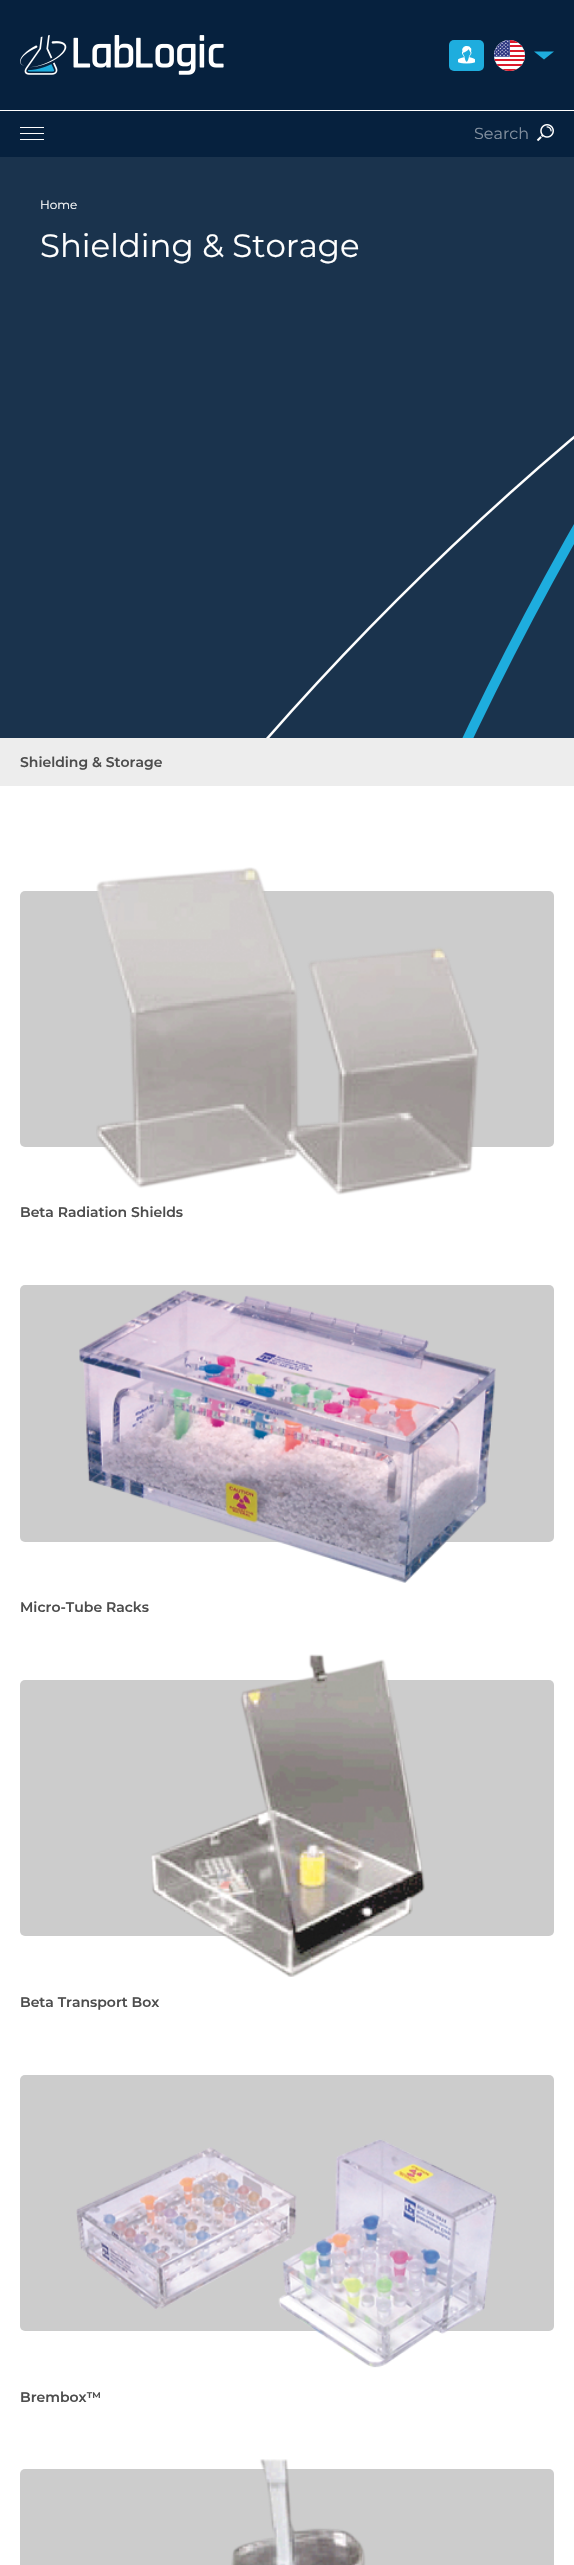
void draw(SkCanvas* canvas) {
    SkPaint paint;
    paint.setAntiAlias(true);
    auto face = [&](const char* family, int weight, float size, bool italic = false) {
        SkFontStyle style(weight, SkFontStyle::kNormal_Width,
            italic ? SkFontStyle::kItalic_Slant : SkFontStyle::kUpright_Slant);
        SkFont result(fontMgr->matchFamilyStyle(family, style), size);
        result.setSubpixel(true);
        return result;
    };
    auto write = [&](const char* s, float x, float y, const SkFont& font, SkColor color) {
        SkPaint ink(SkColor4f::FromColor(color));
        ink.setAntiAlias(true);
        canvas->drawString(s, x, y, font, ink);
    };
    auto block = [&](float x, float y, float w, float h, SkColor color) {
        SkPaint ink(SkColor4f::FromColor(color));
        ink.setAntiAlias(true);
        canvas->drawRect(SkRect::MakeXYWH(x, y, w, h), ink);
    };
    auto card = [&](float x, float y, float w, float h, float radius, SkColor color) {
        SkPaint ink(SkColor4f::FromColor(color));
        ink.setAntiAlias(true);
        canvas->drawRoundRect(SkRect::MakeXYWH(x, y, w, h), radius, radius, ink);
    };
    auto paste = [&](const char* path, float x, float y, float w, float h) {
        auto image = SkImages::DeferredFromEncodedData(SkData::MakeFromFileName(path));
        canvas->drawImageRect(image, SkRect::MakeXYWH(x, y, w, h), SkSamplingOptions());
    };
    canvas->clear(SkColorSetRGB(6, 33, 62));
    block(0, 110, 574, 1, SK_ColorWHITE);
    paste("pic1.png", 20, 35, 204, 40);
    card(449, 40, 35, 31, 5, SkColorSetRGB(30, 173, 222));
    paste("pic2.png", 458, 46, 17, 18);
    paste("pic3.png", 494, 40, 31, 31);
    paint.setColor(SkColorSetRGB(30, 173, 222));
    canvas->drawPath(SkPathBuilder().moveTo(544, 59.5f).lineTo(554, 51.5f).lineTo(534, 51.5f).close().detach(), paint);
    paste("pic4.png", 20, 127, 24, 13);
    auto kFont1 = face("Montserrat", 400, 16);
    write("Search", 474, 139, kFont1, SkColorSetRGB(131, 144, 159));
    paste("pic5.png", 536, 124, 18, 18);
    block(0, 157, 574, 581, SkColorSetRGB(26, 51, 77));
    paste("pic6.png", 266, 435, 308, 303);
    auto kFont2 = face("Montserrat", 400, 12);
    write("Home", 40, 209, kFont2, SK_ColorWHITE);
    auto kFont3 = face("Montserrat", 400, 32.4f);
    write("Shielding & Storage", 40, 257, kFont3, SK_ColorWHITE);
    block(0, 738, 574, 48, SkColorSetRGB(237, 237, 237));
    auto kFont4 = face("Montserrat", 600, 14);
    write("Shielding & Storage", 20, 767, kFont4, SkColorSetRGB(77, 77, 77));
    block(0, 786, 574, 1779, SK_ColorWHITE);
    card(20, 891, 534, 256, 5, SkColorSetRGB(204, 204, 204));
    paste("pic7.png", 96, 867, 383, 328);
    write("Beta Radiation Shields", 20, 1217, kFont4, SkColorSetRGB(77, 77, 77));
    card(20, 1285, 534, 257, 5, SkColorSetRGB(204, 204, 204));
    paste("pic8.png", 79, 1290, 417, 293);
    write("Micro-Tube Racks", 20, 1612, kFont4, SkColorSetRGB(77, 77, 77));
    card(20, 1680, 534, 256, 5, SkColorSetRGB(204, 204, 204));
    paste("pic9.png", 151, 1654, 274, 323);
    write("Beta Transport Box", 20, 2007, kFont4, SkColorSetRGB(77, 77, 77));
    card(20, 2075, 534, 256, 5, SkColorSetRGB(204, 204, 204));
    paste("pic10.png", 76, 2139, 421, 229);
    write("Brembox™", 20, 2402, kFont4, SkColorSetRGB(77, 77, 77));
    card(20, 2469, 534, 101, 5, SkColorSetRGB(204, 204, 204));
    paste("pic11.png", 231, 2459, 135, 106);
}
